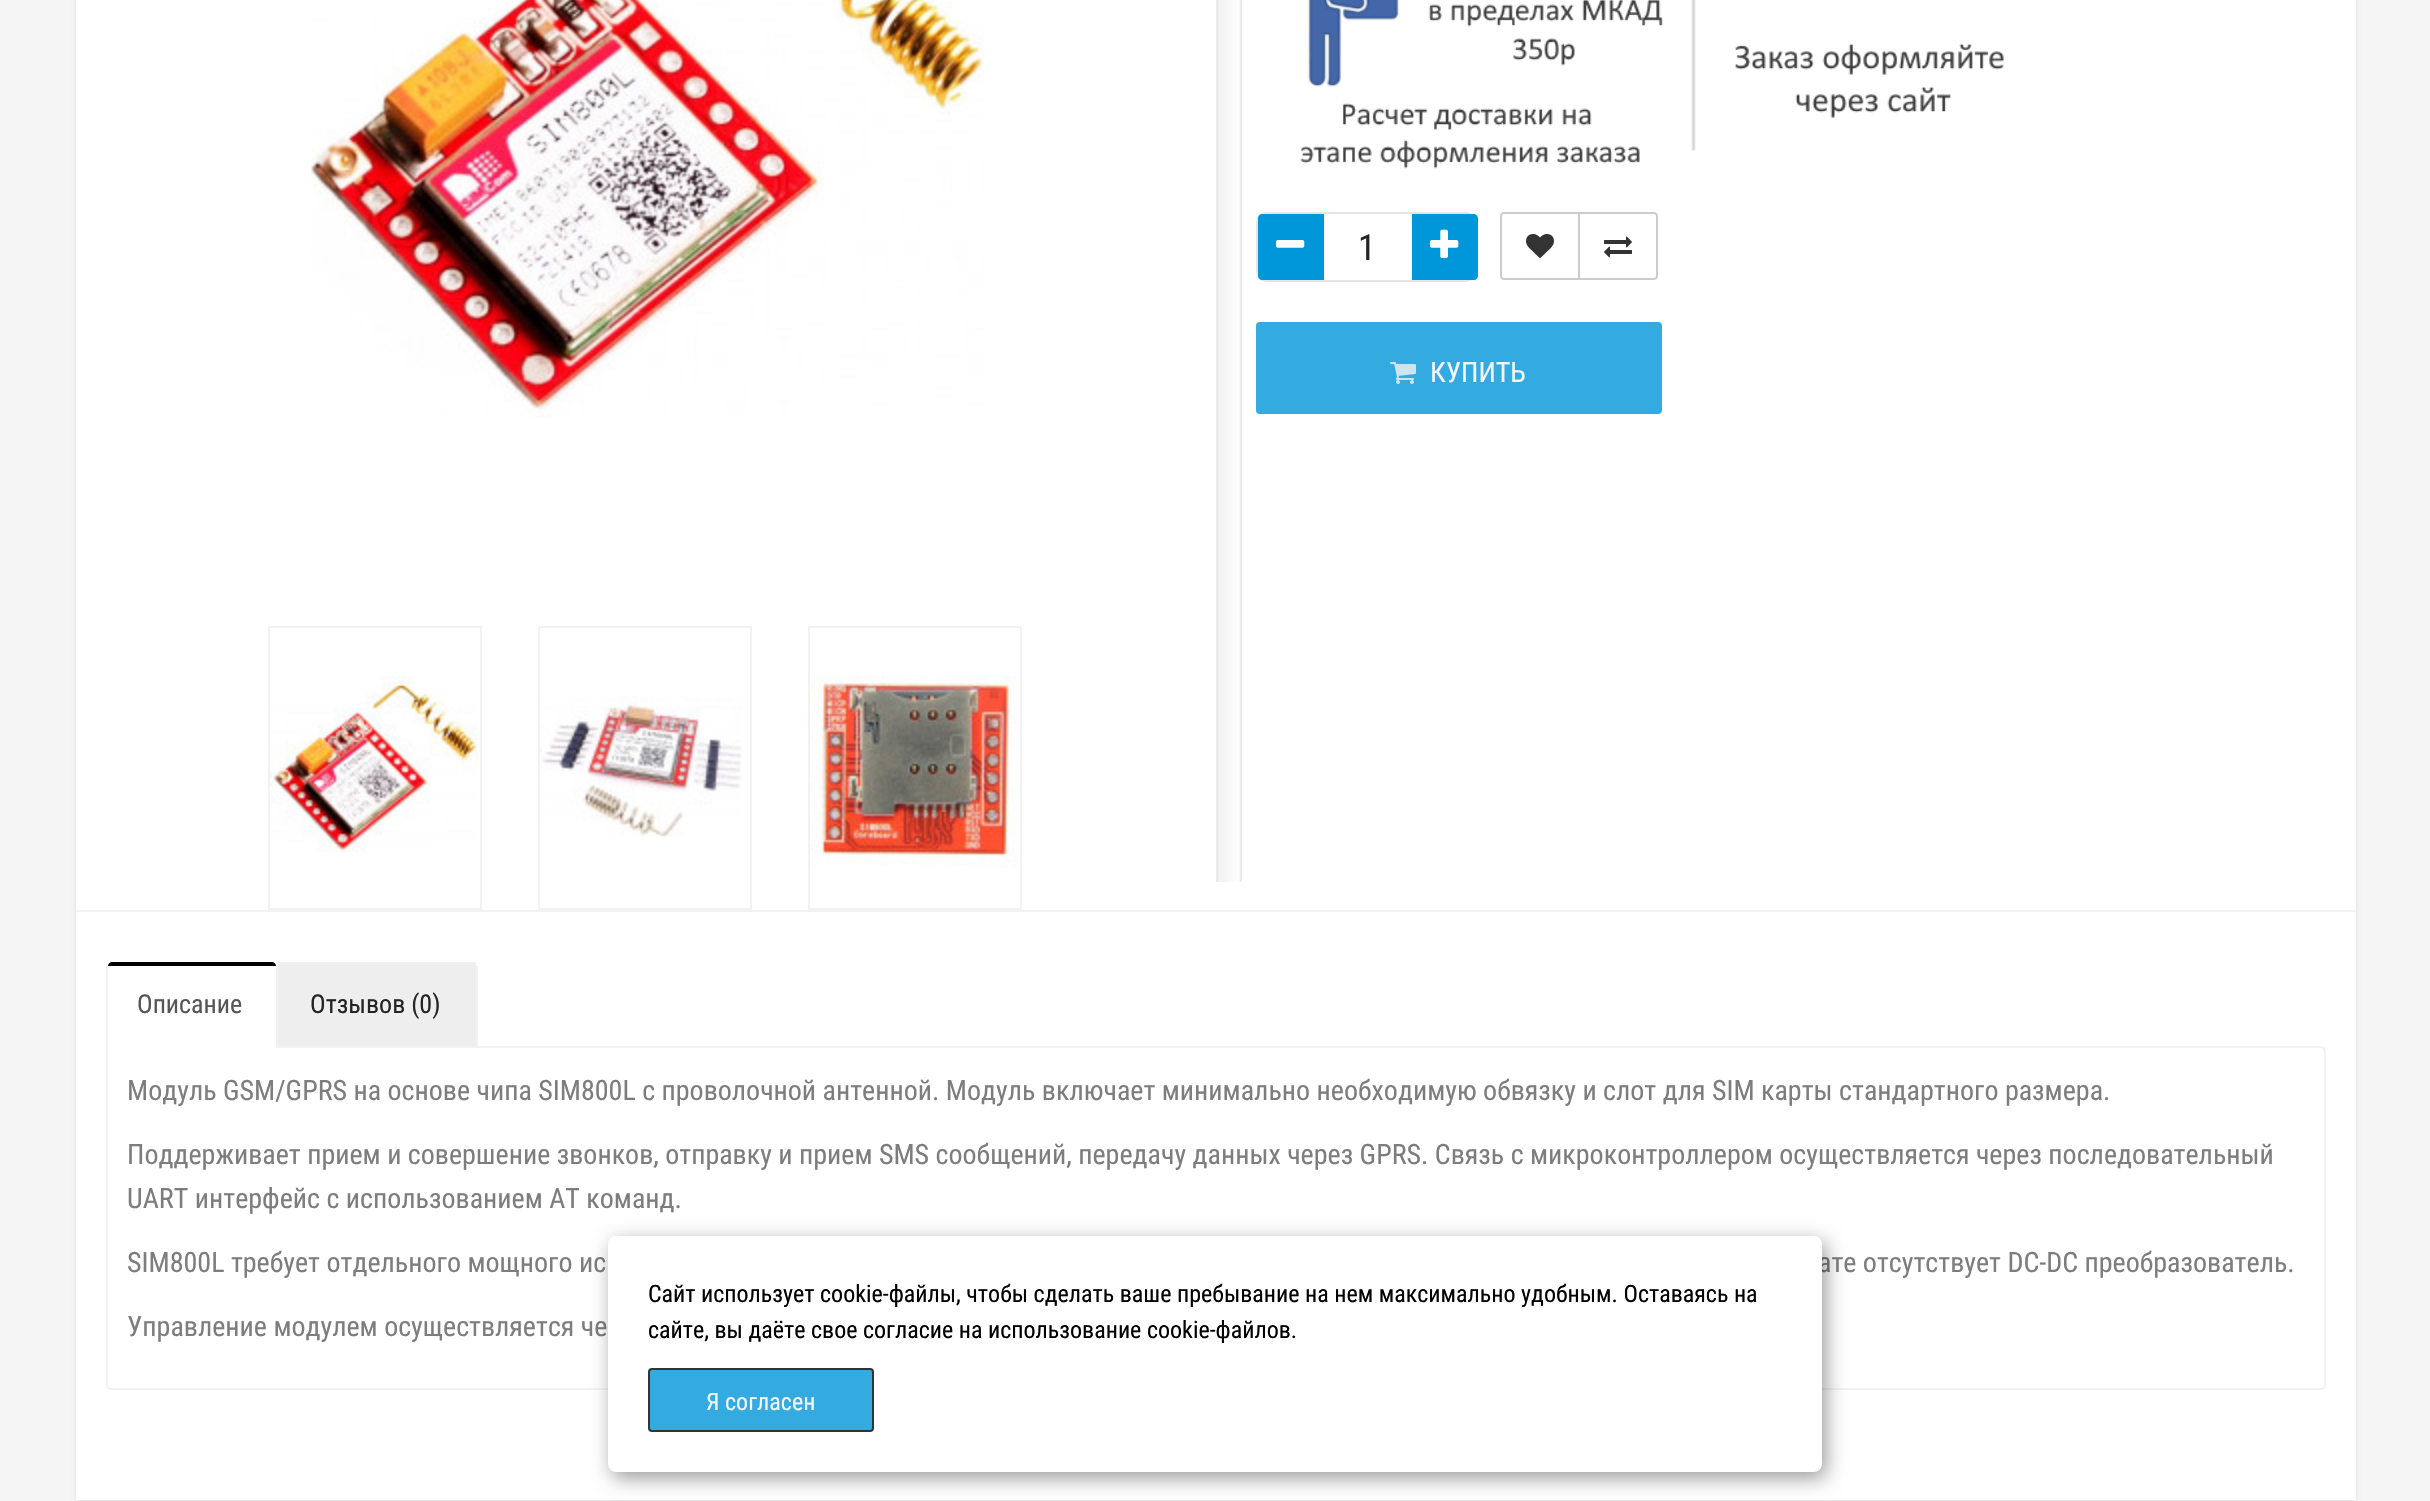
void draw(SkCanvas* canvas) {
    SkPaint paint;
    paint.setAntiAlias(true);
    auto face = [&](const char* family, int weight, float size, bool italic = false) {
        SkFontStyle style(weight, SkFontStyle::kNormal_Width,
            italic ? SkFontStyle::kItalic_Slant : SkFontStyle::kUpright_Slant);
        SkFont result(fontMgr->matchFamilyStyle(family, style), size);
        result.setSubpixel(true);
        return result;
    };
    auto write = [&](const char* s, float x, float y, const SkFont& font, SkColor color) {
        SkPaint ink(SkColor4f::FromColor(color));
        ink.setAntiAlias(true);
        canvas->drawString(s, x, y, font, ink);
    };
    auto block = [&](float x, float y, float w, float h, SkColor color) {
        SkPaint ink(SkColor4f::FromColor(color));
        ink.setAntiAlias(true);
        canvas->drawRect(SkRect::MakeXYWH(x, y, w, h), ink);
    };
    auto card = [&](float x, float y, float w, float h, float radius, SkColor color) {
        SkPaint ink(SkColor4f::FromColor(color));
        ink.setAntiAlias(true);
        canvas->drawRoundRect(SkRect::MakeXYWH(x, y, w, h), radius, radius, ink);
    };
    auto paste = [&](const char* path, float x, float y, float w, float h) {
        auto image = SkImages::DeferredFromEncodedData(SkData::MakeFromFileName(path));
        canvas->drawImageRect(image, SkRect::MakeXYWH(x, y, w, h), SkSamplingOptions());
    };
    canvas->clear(SkColorSetRGB(245, 245, 245));
    paint.setColor(SkColorSetARGB(26, 0, 0, 0));
    paint.setMaskFilter(SkMaskFilter::MakeBlur(kNormal_SkBlurStyle, 2));
    canvas->drawRect(SkRect::MakeXYWH(76, -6, 2280, 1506), paint);
    paint.setMaskFilter(nullptr);
    block(76, 0, 2280, 1500, SK_ColorWHITE);
    paste("pic1.png", 311, 0, 673, 418);
    paint.setStyle(SkPaint::kStroke_Style);
    paint.setStrokeWidth(2);
    paint.setColor(SkColorSetRGB(242, 242, 242));
    canvas->drawRect(SkRect::MakeXYWH(269, 627, 212, 282), paint);
    paste("pic2.png", 270, 676, 208, 176);
    canvas->drawRect(SkRect::MakeXYWH(539, 627, 212, 282), paint);
    paste("pic3.png", 540, 696, 202, 141);
    canvas->drawRect(SkRect::MakeXYWH(809, 627, 212, 282), paint);
    paste("pic4.png", 810, 676, 208, 192);
    paste("pic5.png", 1216, 0, 26, 882);
    paste("pic6.png", 1300, 0, 704, 169);
    paint.setColor(SkColorSetRGB(229, 229, 229));
    canvas->drawRoundRect(SkRect::MakeXYWH(1257, 213, 218, 68), 9, 9, paint);
    paint.setStyle(SkPaint::kFill_Style);
    paint.setColor(SkColorSetRGB(0, 150, 218));
    canvas->drawPath(SkPathBuilder().moveTo(1262, 214).lineTo(1324, 214).lineTo(1324, 280).lineTo(1262, 280).cubicTo(1260, 280, 1258, 278, 1258, 276).lineTo(1258, 218).cubicTo(1258, 216, 1260, 214, 1262, 214).close().detach(), paint);
    paste("pic7.png", 1276, 240, 29, 8);
    canvas->drawPath(SkPathBuilder().moveTo(1412, 214).lineTo(1474, 214).cubicTo(1476, 214, 1478, 216, 1478, 218).lineTo(1478, 276).cubicTo(1478, 278, 1476, 280, 1474, 280).lineTo(1412, 280).close().detach(), paint);
    paste("pic8.png", 1430, 229, 29, 29);
    auto kFont1 = face("Roboto Condensed", 400, 36);
    write("1", 1358, 260, kFont1, SkColorSetRGB(37, 37, 37));
    paint.setStyle(SkPaint::kStroke_Style);
    paint.setColor(SkColorSetRGB(204, 204, 204));
    canvas->drawPath(SkPathBuilder().moveTo(1504, 213).lineTo(1579, 213).lineTo(1579, 279).lineTo(1504, 279).cubicTo(1502.5f, 279, 1501, 277.5f, 1501, 276).lineTo(1501, 216).cubicTo(1501, 214.5f, 1502.5f, 213, 1504, 213).close().detach(), paint);
    paste("pic9.png", 1526, 234, 28, 24);
    paint.setStyle(SkPaint::kFill_Style);
    paint.setColor(SK_ColorWHITE);
    canvas->drawPath(SkPathBuilder().moveTo(1579, 213).lineTo(1654, 213).cubicTo(1655.5f, 213, 1657, 214.5f, 1657, 216).lineTo(1657, 276).cubicTo(1657, 277.5f, 1655.5f, 279, 1654, 279).lineTo(1579, 279).close().detach(), paint);
    paint.setStyle(SkPaint::kStroke_Style);
    paint.setColor(SkColorSetRGB(204, 204, 204));
    canvas->drawPath(SkPathBuilder().moveTo(1579, 213).lineTo(1654, 213).cubicTo(1655.5f, 213, 1657, 214.5f, 1657, 216).lineTo(1657, 276).cubicTo(1657, 277.5f, 1655.5f, 279, 1654, 279).lineTo(1579, 279).close().detach(), paint);
    paste("pic10.png", 1604, 236, 28, 22);
    card(1256, 322, 406, 92, 4, SkColorSetRGB(51, 171, 225));
    paste("pic11.png", 1390, 362, 26, 22);
    auto kFont2 = face("Roboto Condensed", 400, 28);
    write("КУПИТЬ", 1430, 382, kFont2, SkColorSetRGB(245, 245, 245));
    block(76, 910, 2280, 2, SkColorSetRGB(242, 242, 242));
    block(476, 966, 2, 80, SkColorSetRGB(242, 242, 242));
    block(106, 966, 2, 80, SkColorSetRGB(242, 242, 242));
    paint.setColor(SkColorSetRGB(242, 242, 242));
    canvas->drawPath(SkPathBuilder().moveTo(107, 1047).lineTo(2320, 1047).cubicTo(2323, 1047, 2325, 1049, 2325, 1052).lineTo(2325, 1384).cubicTo(2325, 1387, 2323, 1389, 2320, 1389).lineTo(112, 1389).cubicTo(109, 1389, 107, 1387, 107, 1384).close().detach(), paint);
    paint.setStyle(SkPaint::kFill_Style);
    paint.setColor(SK_ColorWHITE);
    canvas->drawPath(SkPathBuilder().moveTo(112, 962).lineTo(272, 962).cubicTo(274, 962, 276, 964, 276, 966).lineTo(276, 1048).lineTo(108, 1048).lineTo(108, 966).cubicTo(108, 964, 110, 962, 112, 962).close().detach(), paint);
    paint.setColor(SK_ColorBLACK);
    canvas->drawPath(SkPathBuilder().moveTo(112, 962).cubicTo(110, 962, 108, 964, 108, 966).lineTo(276, 966).cubicTo(276, 964, 274, 962, 272, 962).close().detach(), paint);
    auto kFont3 = face("Roboto Condensed", 400, 26);
    write("Описание", 137, 1013, kFont3, SkColorSetRGB(85, 85, 85));
    block(278, 964, 198, 82, SkColorSetRGB(238, 238, 238));
    block(276, 962, 200, 2, SkColorSetRGB(242, 242, 242));
    block(276, 962, 2, 86, SkColorSetRGB(242, 242, 242));
    write("Отзывов (0)", 310, 1013, kFont3, SkColorSetRGB(37, 37, 37));
    write("Модуль GSM/GPRS на основе чипа SIM800L с проволочной антенной. Модуль включает минимально необходимую обвязку и слот для SIM карты стандартного размера.", 127, 1100, kFont2, SkColorSetRGB(125, 125, 125));
    write("Поддерживает прием и совершение звонков, отправку и прием SMS сообщений, передачу данных через GPRS. Связь с микроконтроллером осуществляется через последовательный", 127, 1164, kFont2, SkColorSetRGB(125, 125, 125));
    write("UART интерфейс с использованием AT команд.", 127, 1208, kFont2, SkColorSetRGB(125, 125, 125));
    write("SIM800L требует отдельного мощного ис", 127, 1272, kFont2, SkColorSetRGB(125, 125, 125));
    write("ате отсутствует DC-DC преобразователь.", 1818, 1272, kFont2, SkColorSetRGB(125, 125, 125));
    write("Управление модулем осуществляется че", 127, 1336, kFont2, SkColorSetRGB(125, 125, 125));
    paint.setColor(SkColorSetARGB(102, 0, 0, 0));
    paint.setMaskFilter(SkMaskFilter::MakeBlur(kNormal_SkBlurStyle, 10));
    canvas->drawRoundRect(SkRect::MakeXYWH(612, 1242, 1214, 236), 8, 8, paint);
    paint.setMaskFilter(nullptr);
    card(608, 1236, 1214, 236, 8, SK_ColorWHITE);
    auto kFont4 = face("Roboto Condensed", 400, 24);
    write("Сайт использует cookie-файлы, чтобы сделать ваше пребывание на нем максимально удобным. Оставаясь на", 648, 1302, kFont4, SK_ColorBLACK);
    write("сайте, вы даёте свое согласие на использование cookie-файлов.", 648, 1338, kFont4, SK_ColorBLACK);
    paint.setColor(SkColorSetRGB(51, 171, 225));
    canvas->drawRoundRect(SkRect::MakeXYWH(649, 1369, 224, 62), 3, 3, paint);
    paint.setStyle(SkPaint::kStroke_Style);
    paint.setColor(SkColorSetRGB(51, 51, 51));
    canvas->drawRoundRect(SkRect::MakeXYWH(649, 1369, 224, 62), 3, 3, paint);
    write("Я согласен", 706, 1410, kFont4, SkColorSetRGB(245, 245, 245));
}
